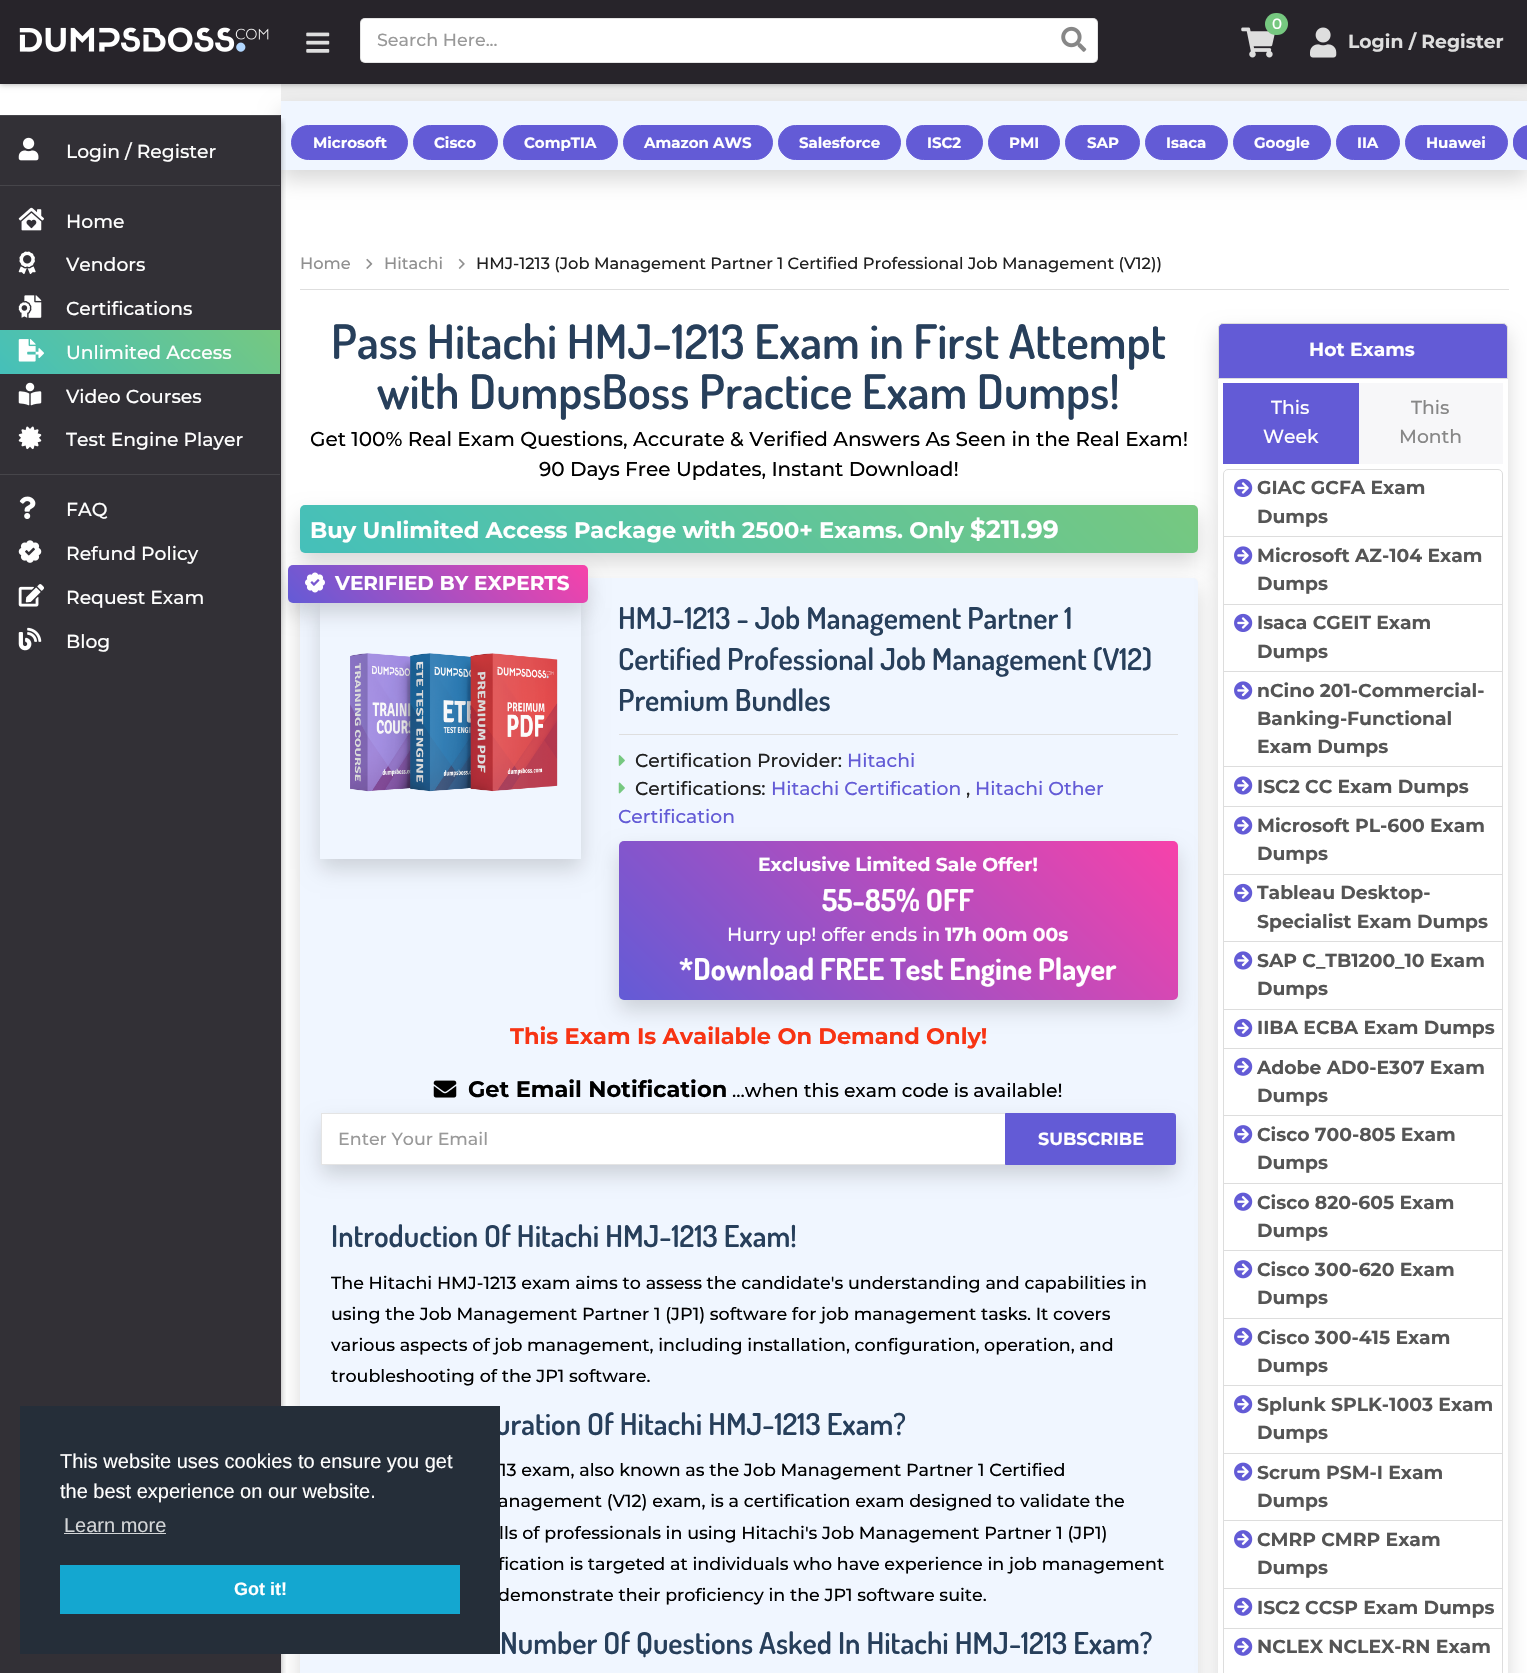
void draw(SkCanvas* canvas) {
    SkPaint paint;
    paint.setAntiAlias(true);
    auto face = [&](const char* family, int weight, float size, bool italic = false) {
        SkFontStyle style(weight, SkFontStyle::kNormal_Width,
            italic ? SkFontStyle::kItalic_Slant : SkFontStyle::kUpright_Slant);
        SkFont result(fontMgr->matchFamilyStyle(family, style), size);
        result.setSubpixel(true);
        return result;
    };
    auto write = [&](const char* s, float x, float y, const SkFont& font, SkColor color) {
        SkPaint ink(SkColor4f::FromColor(color));
        ink.setAntiAlias(true);
        canvas->drawString(s, x, y, font, ink);
    };
    auto block = [&](float x, float y, float w, float h, SkColor color) {
        SkPaint ink(SkColor4f::FromColor(color));
        ink.setAntiAlias(true);
        canvas->drawRect(SkRect::MakeXYWH(x, y, w, h), ink);
    };
    auto card = [&](float x, float y, float w, float h, float radius, SkColor color) {
        SkPaint ink(SkColor4f::FromColor(color));
        ink.setAntiAlias(true);
        canvas->drawRoundRect(SkRect::MakeXYWH(x, y, w, h), radius, radius, ink);
    };
    auto paste = [&](const char* path, float x, float y, float w, float h) {
        auto image = SkImages::DeferredFromEncodedData(SkData::MakeFromFileName(path));
        canvas->drawImageRect(image, SkRect::MakeXYWH(x, y, w, h), SkSamplingOptions());
    };
    canvas->clear(SK_ColorWHITE);
    block(281, 84, 1246, 17, SkColorSetRGB(238, 238, 238));
    paint.setColor(SkColorSetARGB(89, 0, 0, 0));
    paint.setMaskFilter(SkMaskFilter::MakeBlur(kNormal_SkBlurStyle, 3));
    canvas->drawRect(SkRect::MakeXYWH(0, 0, 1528, 84), paint);
    paint.setMaskFilter(nullptr);
    paint.setColor(SkColorSetARGB(38, 0, 0, 0));
    paint.setMaskFilter(SkMaskFilter::MakeBlur(kNormal_SkBlurStyle, 10));
    canvas->drawRect(SkRect::MakeXYWH(281, 111, 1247, 69), paint);
    paint.setMaskFilter(nullptr);
    block(0, 0, 1527, 84, SkColorSetRGB(39, 36, 42));
    paste("pic1.png", 19, 27, 250, 25);
    paste("pic2.png", 306, 32, 24, 21);
    card(360, 18, 738, 45, 5, SK_ColorWHITE);
    paint.setStyle(SkPaint::kStroke_Style);
    paint.setStrokeWidth(1);
    paint.setColor(SkColorSetARGB(31, 33, 33, 33));
    canvas->drawRoundRect(SkRect::MakeXYWH(360.5f, 18.5f, 737, 44), 4.5f, 4.5f, paint);
    auto kFont1 = face("Montserrat", 100, 17.5f);
    write("Search Here...", 377, 46, kFont1, SkColorSetRGB(153, 153, 153));
    paste("pic3.png", 1061, 26, 26, 26);
    paste("pic4.png", 1241, 27, 34, 31);
    card(1265, 13, 23, 22, 11, SkColorSetRGB(118, 200, 128));
    auto kFont2 = face("Montserrat", 100, 15);
    write("0", 1272, 29, kFont2, SK_ColorWHITE);
    paste("pic5.png", 1310, 27, 27, 31);
    auto kFont3 = face("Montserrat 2", 100, 18.75f);
    write("Login / Register", 1348, 48, kFont3, SkColorSetRGB(222, 222, 222));
    block(281, 101, 1246, 69, SkColorSetRGB(240, 246, 255));
    paint.setStyle(SkPaint::kFill_Style);
    paint.setColor(SkColorSetARGB(38, 0, 0, 0));
    paint.setMaskFilter(SkMaskFilter::MakeBlur(kNormal_SkBlurStyle, 10));
    canvas->drawRoundRect(SkRect::MakeXYWH(300, 515, 898, 48), 5, 5, paint);
    paint.setMaskFilter(nullptr);
    paint.setMaskFilter(SkMaskFilter::MakeBlur(kNormal_SkBlurStyle, 10));
    canvas->drawRoundRect(SkRect::MakeXYWH(300, 588, 898, 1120), 5, 5, paint);
    paint.setMaskFilter(nullptr);
    card(300, 578, 898, 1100, 5, SkColorSetRGB(240, 246, 255));
    {
        const SkColor colors[] = {SkColorSetRGB(69, 192, 186), SkColorSetRGB(118, 200, 128)};
        const float stops[] = {0, 1};
        const SkPoint ends[] = {{513, 765}, {985, 293}};
        paint.setShader(SkGradientShader::MakeLinear(ends, colors, stops, 2, SkTileMode::kClamp));
        paint.setAlpha(255);
    }
    canvas->drawRoundRect(SkRect::MakeXYWH(300, 505, 898, 48), 5, 5, paint);
    paint.setShader(nullptr);
    paint.setColor(SkColorSetARGB(38, 0, 0, 0));
    paint.setMaskFilter(SkMaskFilter::MakeBlur(kNormal_SkBlurStyle, 10));
    canvas->drawRoundRect(SkRect::MakeXYWH(288, 575, 300, 38), 5, 5, paint);
    paint.setMaskFilter(nullptr);
    canvas->save();
    canvas->clipPath(SkPathBuilder(SkPathFillType::kEvenOdd).moveTo(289, 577).lineTo(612, 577).lineTo(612, 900).lineTo(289, 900).close().moveTo(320, 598).lineTo(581, 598).lineTo(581, 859).lineTo(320, 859).close().detach(), true);
    paint.setMaskFilter(SkMaskFilter::MakeBlur(kNormal_SkBlurStyle, 10));
    canvas->drawRect(SkRect::MakeXYWH(320, 608, 261, 261), paint);
    paint.setMaskFilter(nullptr);
    canvas->restore();
    {
        const SkColor colors[] = {SkColorSetRGB(99, 91, 214), SkColorSetRGB(247, 66, 170)};
        const float stops[] = {0, 1};
        const SkPoint ends[] = {{353, 668}, {522, 499}};
        paint.setShader(SkGradientShader::MakeLinear(ends, colors, stops, 2, SkTileMode::kClamp));
        paint.setAlpha(255);
    }
    canvas->drawRoundRect(SkRect::MakeXYWH(288, 565, 300, 38), 5, 5, paint);
    canvas->save();
    canvas->clipRect(SkRect::MakeXYWH(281, 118, 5, 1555));
    paint.setShader(nullptr);
    paint.setColor(SkColorSetARGB(89, 0, 0, 0));
    paint.setMaskFilter(SkMaskFilter::MakeBlur(kNormal_SkBlurStyle, 3));
    canvas->drawRect(SkRect::MakeXYWH(0, 121, 281, 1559), paint);
    paint.setMaskFilter(nullptr);
    canvas->restore();
    block(280, 115, 1, 1558, SkColorSetRGB(50, 45, 52));
    block(0, 116, 280, 1557, SkColorSetARGB(242, 39, 37, 43));
    block(0, 115, 280, 1, SkColorSetRGB(70, 69, 74));
    paste("pic6.png", 18, 137, 21, 24);
    auto kFont4 = face("Montserrat", 100, 18.75f);
    write("Login / Register", 66, 158, kFont4, SK_ColorWHITE);
    block(0, 185, 280, 1, SkColorSetRGB(70, 69, 74));
    paste("pic7.png", 18, 207, 26, 24);
    write("Home", 66, 228, kFont4, SK_ColorWHITE);
    paste("pic8.png", 18, 251, 18, 23);
    write("Vendors", 66, 271, kFont4, SK_ColorWHITE);
    paste("pic9.png", 18, 295, 24, 23);
    write("Certifications", 66, 315, kFont4, SK_ColorWHITE);
    {
        const SkColor colors[] = {SkColorSetRGB(69, 192, 186), SkColorSetRGB(118, 200, 128)};
        const float stops[] = {0, 1};
        const SkPoint ends[] = {{59, 433}, {222, 271}};
        paint.setShader(SkGradientShader::MakeLinear(ends, colors, stops, 2, SkTileMode::kClamp));
        paint.setAlpha(255);
    }
    canvas->drawRect(SkRect::MakeXYWH(0, 330, 280, 44), paint);
    paste("pic10.png", 18, 339, 26, 23);
    write("Unlimited Access", 66, 359, kFont4, SK_ColorWHITE);
    paste("pic11.png", 18, 382, 24, 24);
    write("Video Courses", 66, 403, kFont4, SK_ColorWHITE);
    paste("pic12.png", 18, 426, 24, 24);
    write("Test Engine Player", 66, 446, kFont4, SK_ColorWHITE);
    block(0, 474, 280, 1, SkColorSetRGB(70, 69, 74));
    paste("pic13.png", 19, 496, 17, 23);
    write("FAQ", 66, 516, kFont4, SK_ColorWHITE);
    paste("pic14.png", 18, 540, 24, 23);
    write("Refund Policy", 66, 560, kFont4, SK_ColorWHITE);
    paste("pic15.png", 18, 584, 26, 23);
    write("Request Exam", 66, 604, kFont4, SK_ColorWHITE);
    paste("pic16.png", 18, 627, 24, 24);
    write("Blog", 66, 648, kFont4, SK_ColorWHITE);
    paint.setShader(nullptr);
    paint.setColor(SkColorSetRGB(99, 91, 214));
    canvas->drawRoundRect(SkRect::MakeXYWH(291.5f, 125.5f, 116, 34), 17, 17, paint);
    paint.setStyle(SkPaint::kStroke_Style);
    canvas->drawRoundRect(SkRect::MakeXYWH(291.5f, 125.5f, 116, 34), 17, 17, paint);
    auto kFont5 = face("Montserrat 2", 100, 15);
    write("Microsoft", 313, 148, kFont5, SK_ColorWHITE);
    paint.setStyle(SkPaint::kFill_Style);
    canvas->drawRoundRect(SkRect::MakeXYWH(413.5f, 125.5f, 84, 34), 17, 17, paint);
    paint.setStyle(SkPaint::kStroke_Style);
    canvas->drawRoundRect(SkRect::MakeXYWH(413.5f, 125.5f, 84, 34), 17, 17, paint);
    write("Cisco", 434, 148, kFont5, SK_ColorWHITE);
    paint.setStyle(SkPaint::kFill_Style);
    canvas->drawRoundRect(SkRect::MakeXYWH(503.5f, 125.5f, 114, 34), 17, 17, paint);
    paint.setStyle(SkPaint::kStroke_Style);
    canvas->drawRoundRect(SkRect::MakeXYWH(503.5f, 125.5f, 114, 34), 17, 17, paint);
    write("CompTIA", 524, 148, kFont5, SK_ColorWHITE);
    paint.setStyle(SkPaint::kFill_Style);
    canvas->drawRoundRect(SkRect::MakeXYWH(623.5f, 125.5f, 149, 34), 17, 17, paint);
    paint.setStyle(SkPaint::kStroke_Style);
    canvas->drawRoundRect(SkRect::MakeXYWH(623.5f, 125.5f, 149, 34), 17, 17, paint);
    write("Amazon AWS", 644, 148, kFont5, SK_ColorWHITE);
    paint.setStyle(SkPaint::kFill_Style);
    canvas->drawRoundRect(SkRect::MakeXYWH(778.5f, 125.5f, 122, 34), 17, 17, paint);
    paint.setStyle(SkPaint::kStroke_Style);
    canvas->drawRoundRect(SkRect::MakeXYWH(778.5f, 125.5f, 122, 34), 17, 17, paint);
    write("Salesforce", 799, 148, kFont5, SK_ColorWHITE);
    paint.setStyle(SkPaint::kFill_Style);
    canvas->drawRoundRect(SkRect::MakeXYWH(906.5f, 125.5f, 76, 34), 17, 17, paint);
    paint.setStyle(SkPaint::kStroke_Style);
    canvas->drawRoundRect(SkRect::MakeXYWH(906.5f, 125.5f, 76, 34), 17, 17, paint);
    write("ISC2", 927, 148, kFont5, SK_ColorWHITE);
    paint.setStyle(SkPaint::kFill_Style);
    canvas->drawRoundRect(SkRect::MakeXYWH(988.5f, 125.5f, 71, 34), 17, 17, paint);
    paint.setStyle(SkPaint::kStroke_Style);
    canvas->drawRoundRect(SkRect::MakeXYWH(988.5f, 125.5f, 71, 34), 17, 17, paint);
    write("PMI", 1009, 148, kFont5, SK_ColorWHITE);
    paint.setStyle(SkPaint::kFill_Style);
    canvas->drawRoundRect(SkRect::MakeXYWH(1065.5f, 125.5f, 74, 34), 17, 17, paint);
    paint.setStyle(SkPaint::kStroke_Style);
    canvas->drawRoundRect(SkRect::MakeXYWH(1065.5f, 125.5f, 74, 34), 17, 17, paint);
    write("SAP", 1087, 148, kFont5, SK_ColorWHITE);
    paint.setStyle(SkPaint::kFill_Style);
    canvas->drawRoundRect(SkRect::MakeXYWH(1145.5f, 125.5f, 82, 34), 17, 17, paint);
    paint.setStyle(SkPaint::kStroke_Style);
    canvas->drawRoundRect(SkRect::MakeXYWH(1145.5f, 125.5f, 82, 34), 17, 17, paint);
    write("Isaca", 1166, 148, kFont5, SK_ColorWHITE);
    paint.setStyle(SkPaint::kFill_Style);
    canvas->drawRoundRect(SkRect::MakeXYWH(1233.5f, 125.5f, 97, 34), 17, 17, paint);
    paint.setStyle(SkPaint::kStroke_Style);
    canvas->drawRoundRect(SkRect::MakeXYWH(1233.5f, 125.5f, 97, 34), 17, 17, paint);
    write("Google", 1254, 148, kFont5, SK_ColorWHITE);
    paint.setStyle(SkPaint::kFill_Style);
    canvas->drawRoundRect(SkRect::MakeXYWH(1336.5f, 125.5f, 63, 34), 17, 17, paint);
    paint.setStyle(SkPaint::kStroke_Style);
    canvas->drawRoundRect(SkRect::MakeXYWH(1336.5f, 125.5f, 63, 34), 17, 17, paint);
    write("IIA", 1357, 148, kFont5, SK_ColorWHITE);
    paint.setStyle(SkPaint::kFill_Style);
    canvas->drawRoundRect(SkRect::MakeXYWH(1405.5f, 125.5f, 102, 34), 17, 17, paint);
    paint.setStyle(SkPaint::kStroke_Style);
    canvas->drawRoundRect(SkRect::MakeXYWH(1405.5f, 125.5f, 102, 34), 17, 17, paint);
    write("Huawei", 1426, 148, kFont5, SK_ColorWHITE);
    paint.setStyle(SkPaint::kFill_Style);
    canvas->drawPath(SkPathBuilder().moveTo(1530.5f, 125).lineTo(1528, 125).lineTo(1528, 160).lineTo(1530.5f, 160).cubicTo(1521, 160, 1513, 152, 1513, 142.5f).cubicTo(1513, 133, 1521, 125, 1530.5f, 125).close().detach(), paint);
    paint.setStyle(SkPaint::kStroke_Style);
    canvas->drawRoundRect(SkRect::MakeXYWH(1513.5f, 125.5f, 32, 34), 17, 17, paint);
    auto kFont6 = face("Montserrat", 100, 16.25f);
    write("Home", 300, 269, kFont6, SkColorSetRGB(144, 144, 144));
    paste("pic17.png", 366, 258, 7, 11);
    write("Hitachi", 384, 269, kFont6, SkColorSetRGB(144, 144, 144));
    paste("pic18.png", 458, 258, 7, 11);
    write("HMJ-1213 (Job Management Partner 1 Certified Professional Job Management (V12))", 476, 269, kFont6, SkColorSetRGB(33, 33, 33));
    block(300, 289, 1209, 1, SkColorSetRGB(222, 222, 222));
    auto kFont7 = face("Dosis", 600, 47.5f);
    write("Pass Hitachi HMJ-1213 Exam in First Attempt", 331, 359, kFont7, SkColorSetRGB(39, 63, 91));
    write("with DumpsBoss Practice Exam Dumps!", 377, 409, kFont7, SkColorSetRGB(39, 63, 91));
    auto kFont8 = face("Montserrat", 100, 20);
    write("Get 100% Real Exam Questions, Accurate & Verified Answers As Seen in the Real Exam!", 310, 446, kFont8, SK_ColorBLACK);
    write("90 Days Free Updates, Instant Download!", 539, 476, kFont8, SK_ColorBLACK);
    auto kFont9 = face("Montserrat 2", 100, 22.5f);
    write("Buy Unlimited Access Package with 2500+ Exams. Only", 310, 538, kFont9, SK_ColorWHITE);
    auto kFont10 = face("Montserrat 2", 100, 25);
    write("$211.99", 970, 538, kFont10, SK_ColorWHITE);
    paste("pic19.png", 305, 572, 20, 21);
    auto kFont11 = face("Montserrat 2", 100, 20);
    write("VERIFIED BY EXPERTS", 335, 590, kFont11, SK_ColorWHITE);
    paste("pic20.png", 350, 653, 208, 139);
    auto kFont12 = face("Dosis", 600, 30);
    write("HMJ-1213 - Job Management Partner 1", 618, 629, kFont12, SkColorSetRGB(39, 63, 91));
    write("Certified Professional Job Management (V12)", 618, 670, kFont12, SkColorSetRGB(39, 63, 91));
    write("Premium Bundles", 618, 711, kFont12, SkColorSetRGB(39, 63, 91));
    block(619, 734, 559, 1, SkColorSetRGB(222, 222, 222));
    paste("pic21.png", 618, 755, 7, 11);
    write("Certification Provider:", 635, 767, kFont4, SkColorSetRGB(33, 33, 33));
    write("Hitachi", 847, 767, kFont4, SkColorSetRGB(99, 91, 214));
    paste("pic22.png", 618, 782, 7, 12);
    write("Certifications:", 635, 795, kFont4, SkColorSetRGB(33, 33, 33));
    write("Hitachi Certification", 771, 795, kFont4, SkColorSetRGB(99, 91, 214));
    write("Hitachi Other", 975, 795, kFont4, SkColorSetRGB(99, 91, 214));
    write(",", 966, 795, kFont4, SkColorSetRGB(33, 33, 33));
    paint.setStyle(SkPaint::kFill_Style);
    paint.setColor(SkColorSetARGB(38, 0, 0, 0));
    paint.setMaskFilter(SkMaskFilter::MakeBlur(kNormal_SkBlurStyle, 10));
    canvas->drawRoundRect(SkRect::MakeXYWH(619, 851, 559, 159), 5, 5, paint);
    paint.setMaskFilter(nullptr);
    write("Certification", 618, 823, kFont4, SkColorSetRGB(99, 91, 214));
    {
        const SkColor colors[] = {SkColorSetRGB(99, 91, 214), SkColorSetRGB(247, 66, 170)};
        const float stops[] = {0, 1};
        const SkPoint ends[] = {{719, 1100}, {1078, 741}};
        paint.setShader(SkGradientShader::MakeLinear(ends, colors, stops, 2, SkTileMode::kClamp));
        paint.setAlpha(255);
    }
    canvas->drawRoundRect(SkRect::MakeXYWH(619, 841, 559, 159), 5, 5, paint);
    write("Exclusive Limited Sale Offer!", 758, 871, kFont3, SK_ColorWHITE);
    auto kFont13 = face("Dosis", 700, 30);
    write("55-85% OFF", 822, 911, kFont13, SK_ColorWHITE);
    write("Hurry up! offer ends in", 727, 941, kFont4, SK_ColorWHITE);
    write("17h 00m 00s", 945, 941, kFont3, SK_ColorWHITE);
    write("*Download FREE Test Engine Player", 679, 980, kFont13, SK_ColorWHITE);
    write("This Exam Is Available On Demand Only!", 510, 1044, kFont9, SkColorSetRGB(247, 52, 20));
    paste("pic23.png", 433, 1080, 24, 18);
    write("Get Email Notification", 468, 1097, kFont9, SK_ColorBLACK);
    write("...when this exam code is available!", 732, 1097, kFont4, SK_ColorBLACK);
    paint.setShader(nullptr);
    paint.setColor(SkColorSetARGB(38, 0, 0, 0));
    paint.setMaskFilter(SkMaskFilter::MakeBlur(kNormal_SkBlurStyle, 10));
    canvas->drawRoundRect(SkRect::MakeXYWH(321, 1123, 855, 52), 5, 5, paint);
    paint.setMaskFilter(nullptr);
    paint.setColor(SK_ColorWHITE);
    canvas->drawRect(SkRect::MakeXYWH(321.5f, 1113.5f, 684, 51), paint);
    paint.setStyle(SkPaint::kStroke_Style);
    paint.setColor(SkColorSetRGB(228, 228, 228));
    canvas->drawRect(SkRect::MakeXYWH(321.5f, 1113.5f, 684, 51), paint);
    write("Enter Your Email", 338, 1145, kFont1, SkColorSetRGB(153, 153, 153));
    paint.setStyle(SkPaint::kFill_Style);
    paint.setColor(SkColorSetRGB(99, 91, 214));
    canvas->drawPath(SkPathBuilder().moveTo(1005.5f, 1113.5f).lineTo(1173.5f, 1113.5f).cubicTo(1174.5f, 1113.5f, 1175.5f, 1114.5f, 1175.5f, 1115.5f).lineTo(1175.5f, 1162.5f).cubicTo(1175.5f, 1163.5f, 1174.5f, 1164.5f, 1173.5f, 1164.5f).lineTo(1005.5f, 1164.5f).close().detach(), paint);
    paint.setStyle(SkPaint::kStroke_Style);
    canvas->drawPath(SkPathBuilder().moveTo(1005.5f, 1113.5f).lineTo(1173.5f, 1113.5f).cubicTo(1174.5f, 1113.5f, 1175.5f, 1114.5f, 1175.5f, 1115.5f).lineTo(1175.5f, 1162.5f).cubicTo(1175.5f, 1163.5f, 1174.5f, 1164.5f, 1173.5f, 1164.5f).lineTo(1005.5f, 1164.5f).close().detach(), paint);
    auto kFont14 = face("Montserrat 2", 100, 17.5f);
    write("SUBSCRIBE", 1038, 1145, kFont14, SK_ColorWHITE);
    write("Introduction Of Hitachi HMJ-1213 Exam!", 331, 1247, kFont12, SkColorSetRGB(39, 63, 91));
    write("The Hitachi HMJ-1213 exam aims to assess the candidate's understanding and capabilities in", 331, 1289, kFont1, SK_ColorBLACK);
    write("using the Job Management Partner 1 (JP1) software for job management tasks. It covers", 331, 1320, kFont1, SK_ColorBLACK);
    write("various aspects of job management, including installation, configuration, operation, and", 331, 1351, kFont1, SK_ColorBLACK);
    write("troubleshooting of the JP1 software.", 331, 1382, kFont1, SK_ColorBLACK);
    write("uration Of Hitachi HMJ-1213 Exam?", 495, 1435, kFont12, SkColorSetRGB(39, 63, 91));
    write("13 exam, also known as the Job Management Partner 1 Certified", 500, 1476, kFont1, SK_ColorBLACK);
    write("anagement (V12) exam, is a certification exam designed to validate the", 498, 1507, kFont1, SK_ColorBLACK);
    write("lls of professionals in using Hitachi's Job Management Partner 1 (JP1)", 499, 1539, kFont1, SK_ColorBLACK);
    write("fication is targeted at individuals who have experience in job management", 498, 1570, kFont1, SK_ColorBLACK);
    write("demonstrate their proficiency in the JP1 software suite.", 498, 1601, kFont1, SK_ColorBLACK);
    write("Number Of Questions Asked In Hitachi HMJ-1213 Exam?", 500, 1654, kFont12, SkColorSetRGB(39, 63, 91));
    paint.setStyle(SkPaint::kFill_Style);
    paint.setColor(SkColorSetARGB(38, 0, 0, 0));
    paint.setMaskFilter(SkMaskFilter::MakeBlur(kNormal_SkBlurStyle, 10));
    canvas->drawRoundRect(SkRect::MakeXYWH(1218, 333, 290, 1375), 5, 5, paint);
    paint.setMaskFilter(nullptr);
    card(1218, 323, 290, 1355, 5, SK_ColorWHITE);
    paint.setColor(SkColorSetRGB(99, 91, 214));
    canvas->drawPath(SkPathBuilder().moveTo(1223, 323.5f).lineTo(1503, 323.5f).cubicTo(1505.5f, 323.5f, 1507.5f, 325.5f, 1507.5f, 328).lineTo(1507.5f, 378.5f).lineTo(1218.5f, 378.5f).lineTo(1218.5f, 328).cubicTo(1218.5f, 325.5f, 1220.5f, 323.5f, 1223, 323.5f).close().detach(), paint);
    paint.setStyle(SkPaint::kStroke_Style);
    paint.setColor(SkColorSetRGB(221, 221, 221));
    canvas->drawPath(SkPathBuilder().moveTo(1223, 323.5f).lineTo(1503, 323.5f).cubicTo(1505.5f, 323.5f, 1507.5f, 325.5f, 1507.5f, 328).lineTo(1507.5f, 378.5f).lineTo(1218.5f, 378.5f).lineTo(1218.5f, 328).cubicTo(1218.5f, 325.5f, 1220.5f, 323.5f, 1223, 323.5f).close().detach(), paint);
    write("Hot Exams", 1309, 356, kFont3, SK_ColorWHITE);
    block(1223, 383, 136, 81, SkColorSetRGB(99, 91, 214));
    write("This", 1271, 414, kFont4, SK_ColorWHITE);
    write("Week", 1263, 443, kFont4, SK_ColorWHITE);
    block(1359, 383, 144, 81, SkColorSetRGB(247, 247, 249));
    write("This", 1411, 414, kFont4, SkColorSetRGB(135, 135, 135));
    write("Month", 1399, 443, kFont4, SkColorSetRGB(135, 135, 135));
    canvas->drawPath(SkPathBuilder().moveTo(1228, 469.5f).lineTo(1498, 469.5f).cubicTo(1500.5f, 469.5f, 1502.5f, 471.5f, 1502.5f, 474).lineTo(1502.5f, 537.5f).lineTo(1223.5f, 537.5f).lineTo(1223.5f, 474).cubicTo(1223.5f, 471.5f, 1225.5f, 469.5f, 1228, 469.5f).close().detach(), paint);
    paste("pic24.png", 1234, 478, 19, 19);
    write("GIAC GCFA Exam", 1257, 494, kFont3, SkColorSetRGB(85, 85, 85));
    write("Dumps", 1257, 523, kFont3, SkColorSetRGB(85, 85, 85));
    block(1224, 537, 278, 1, SK_ColorWHITE);
    canvas->drawRect(SkRect::MakeXYWH(1223.5f, 536.5f, 279, 68), paint);
    paste("pic25.png", 1234, 546, 19, 19);
    write("Microsoft AZ-104 Exam", 1257, 562, kFont3, SkColorSetRGB(85, 85, 85));
    write("Dumps", 1257, 590, kFont3, SkColorSetRGB(85, 85, 85));
    canvas->drawRect(SkRect::MakeXYWH(1223.5f, 604.5f, 279, 68), paint);
    paste("pic24.png", 1234, 613, 19, 19);
    write("Isaca CGEIT Exam", 1257, 629, kFont3, SkColorSetRGB(85, 85, 85));
    write("Dumps", 1257, 658, kFont3, SkColorSetRGB(85, 85, 85));
    block(1224, 672, 278, 1, SK_ColorWHITE);
    canvas->drawRect(SkRect::MakeXYWH(1223.5f, 671.5f, 279, 96), paint);
    paste("pic25.png", 1234, 681, 19, 19);
    write("nCino 201-Commercial-", 1257, 697, kFont3, SkColorSetRGB(85, 85, 85));
    write("Banking-Functional", 1257, 725, kFont3, SkColorSetRGB(85, 85, 85));
    write("Exam Dumps", 1257, 753, kFont3, SkColorSetRGB(85, 85, 85));
    block(1224, 767, 278, 1, SK_ColorWHITE);
    canvas->drawRect(SkRect::MakeXYWH(1223.5f, 766.5f, 279, 41), paint);
    paste("pic25.png", 1234, 776, 19, 19);
    write("ISC2 CC Exam Dumps", 1257, 793, kFont3, SkColorSetRGB(85, 85, 85));
    block(1224, 807, 278, 1, SK_ColorWHITE);
    canvas->drawRect(SkRect::MakeXYWH(1223.5f, 806.5f, 279, 68), paint);
    paste("pic25.png", 1234, 816, 19, 19);
    write("Microsoft PL-600 Exam", 1257, 832, kFont3, SkColorSetRGB(85, 85, 85));
    write("Dumps", 1257, 860, kFont3, SkColorSetRGB(85, 85, 85));
    canvas->drawRect(SkRect::MakeXYWH(1223.5f, 874.5f, 279, 68), paint);
    paste("pic24.png", 1234, 883, 19, 19);
    write("Tableau Desktop-", 1257, 899, kFont3, SkColorSetRGB(85, 85, 85));
    write("Specialist Exam Dumps", 1257, 928, kFont3, SkColorSetRGB(85, 85, 85));
    block(1224, 942, 278, 1, SK_ColorWHITE);
    canvas->drawRect(SkRect::MakeXYWH(1223.5f, 941.5f, 279, 68), paint);
    paste("pic25.png", 1234, 951, 19, 19);
    write("SAP C_TB1200_10 Exam", 1257, 967, kFont3, SkColorSetRGB(85, 85, 85));
    write("Dumps", 1257, 995, kFont3, SkColorSetRGB(85, 85, 85));
    canvas->drawRect(SkRect::MakeXYWH(1223.5f, 1009.5f, 279, 39), paint);
    paste("pic24.png", 1234, 1018, 19, 19);
    write("IIBA ECBA Exam Dumps", 1257, 1034, kFont3, SkColorSetRGB(85, 85, 85));
    canvas->drawRect(SkRect::MakeXYWH(1223.5f, 1048.5f, 279, 67), paint);
    paste("pic26.png", 1234, 1057, 19, 19);
    write("Adobe AD0-E307 Exam", 1257, 1074, kFont3, SkColorSetRGB(85, 85, 85));
    write("Dumps", 1257, 1102, kFont3, SkColorSetRGB(85, 85, 85));
    canvas->drawRect(SkRect::MakeXYWH(1223.5f, 1115.5f, 279, 68), paint);
    paste("pic27.png", 1234, 1125, 19, 19);
    write("Cisco 700-805 Exam", 1257, 1141, kFont3, SkColorSetRGB(85, 85, 85));
    write("Dumps", 1257, 1169, kFont3, SkColorSetRGB(85, 85, 85));
    canvas->drawRect(SkRect::MakeXYWH(1223.5f, 1183.5f, 279, 67), paint);
    paste("pic26.png", 1234, 1192, 19, 19);
    write("Cisco 820-605 Exam", 1257, 1209, kFont3, SkColorSetRGB(85, 85, 85));
    write("Dumps", 1257, 1237, kFont3, SkColorSetRGB(85, 85, 85));
    canvas->drawRect(SkRect::MakeXYWH(1223.5f, 1250.5f, 279, 68), paint);
    paste("pic27.png", 1234, 1260, 19, 19);
    write("Cisco 300-620 Exam", 1257, 1276, kFont3, SkColorSetRGB(85, 85, 85));
    write("Dumps", 1257, 1304, kFont3, SkColorSetRGB(85, 85, 85));
    canvas->drawRect(SkRect::MakeXYWH(1223.5f, 1318.5f, 279, 67), paint);
    paste("pic26.png", 1234, 1327, 19, 19);
    write("Cisco 300-415 Exam", 1257, 1344, kFont3, SkColorSetRGB(85, 85, 85));
    write("Dumps", 1257, 1372, kFont3, SkColorSetRGB(85, 85, 85));
    canvas->drawRect(SkRect::MakeXYWH(1223.5f, 1385.5f, 279, 68), paint);
    paste("pic27.png", 1234, 1395, 19, 19);
    write("Splunk SPLK-1003 Exam", 1257, 1411, kFont3, SkColorSetRGB(85, 85, 85));
    write("Dumps", 1257, 1439, kFont3, SkColorSetRGB(85, 85, 85));
    canvas->drawRect(SkRect::MakeXYWH(1223.5f, 1453.5f, 279, 67), paint);
    paste("pic26.png", 1234, 1462, 19, 19);
    write("Scrum PSM-I Exam", 1257, 1479, kFont3, SkColorSetRGB(85, 85, 85));
    write("Dumps", 1257, 1507, kFont3, SkColorSetRGB(85, 85, 85));
    canvas->drawRect(SkRect::MakeXYWH(1223.5f, 1520.5f, 279, 68), paint);
    paste("pic27.png", 1234, 1530, 19, 19);
    write("CMRP CMRP Exam", 1257, 1546, kFont3, SkColorSetRGB(85, 85, 85));
    write("Dumps", 1257, 1574, kFont3, SkColorSetRGB(85, 85, 85));
    canvas->drawRect(SkRect::MakeXYWH(1223.5f, 1588.5f, 279, 40), paint);
    paste("pic26.png", 1234, 1597, 19, 19);
    write("ISC2 CCSP Exam Dumps", 1257, 1614, kFont3, SkColorSetRGB(85, 85, 85));
    canvas->drawRect(SkRect::MakeXYWH(1223.5f, 1628.5f, 279, 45), paint);
    paste("pic26.png", 1234, 1637, 19, 19);
    write("NCLEX NCLEX-RN Exam", 1257, 1653, kFont3, SkColorSetRGB(85, 85, 85));
    block(20, 1406, 480, 248, SkColorSetRGB(37, 46, 57));
    auto kFont15 = face("Liberation Sans", 400, 20);
    write("This website uses cookies to ensure you get", 60, 1468, kFont15, SK_ColorWHITE);
    write("the best experience on our website.", 60, 1498, kFont15, SK_ColorWHITE);
    write("Learn more", 64, 1532, kFont15, SkColorSetRGB(211, 213, 215));
    block(64, 1533, 102, 1, SkColorSetRGB(211, 213, 215));
    block(60, 1565, 400, 49, SkColorSetRGB(20, 167, 208));
    auto kFont16 = face("Liberation Sans", 700, 18);
    write("Got it!", 234, 1595, kFont16, SK_ColorWHITE);
}
